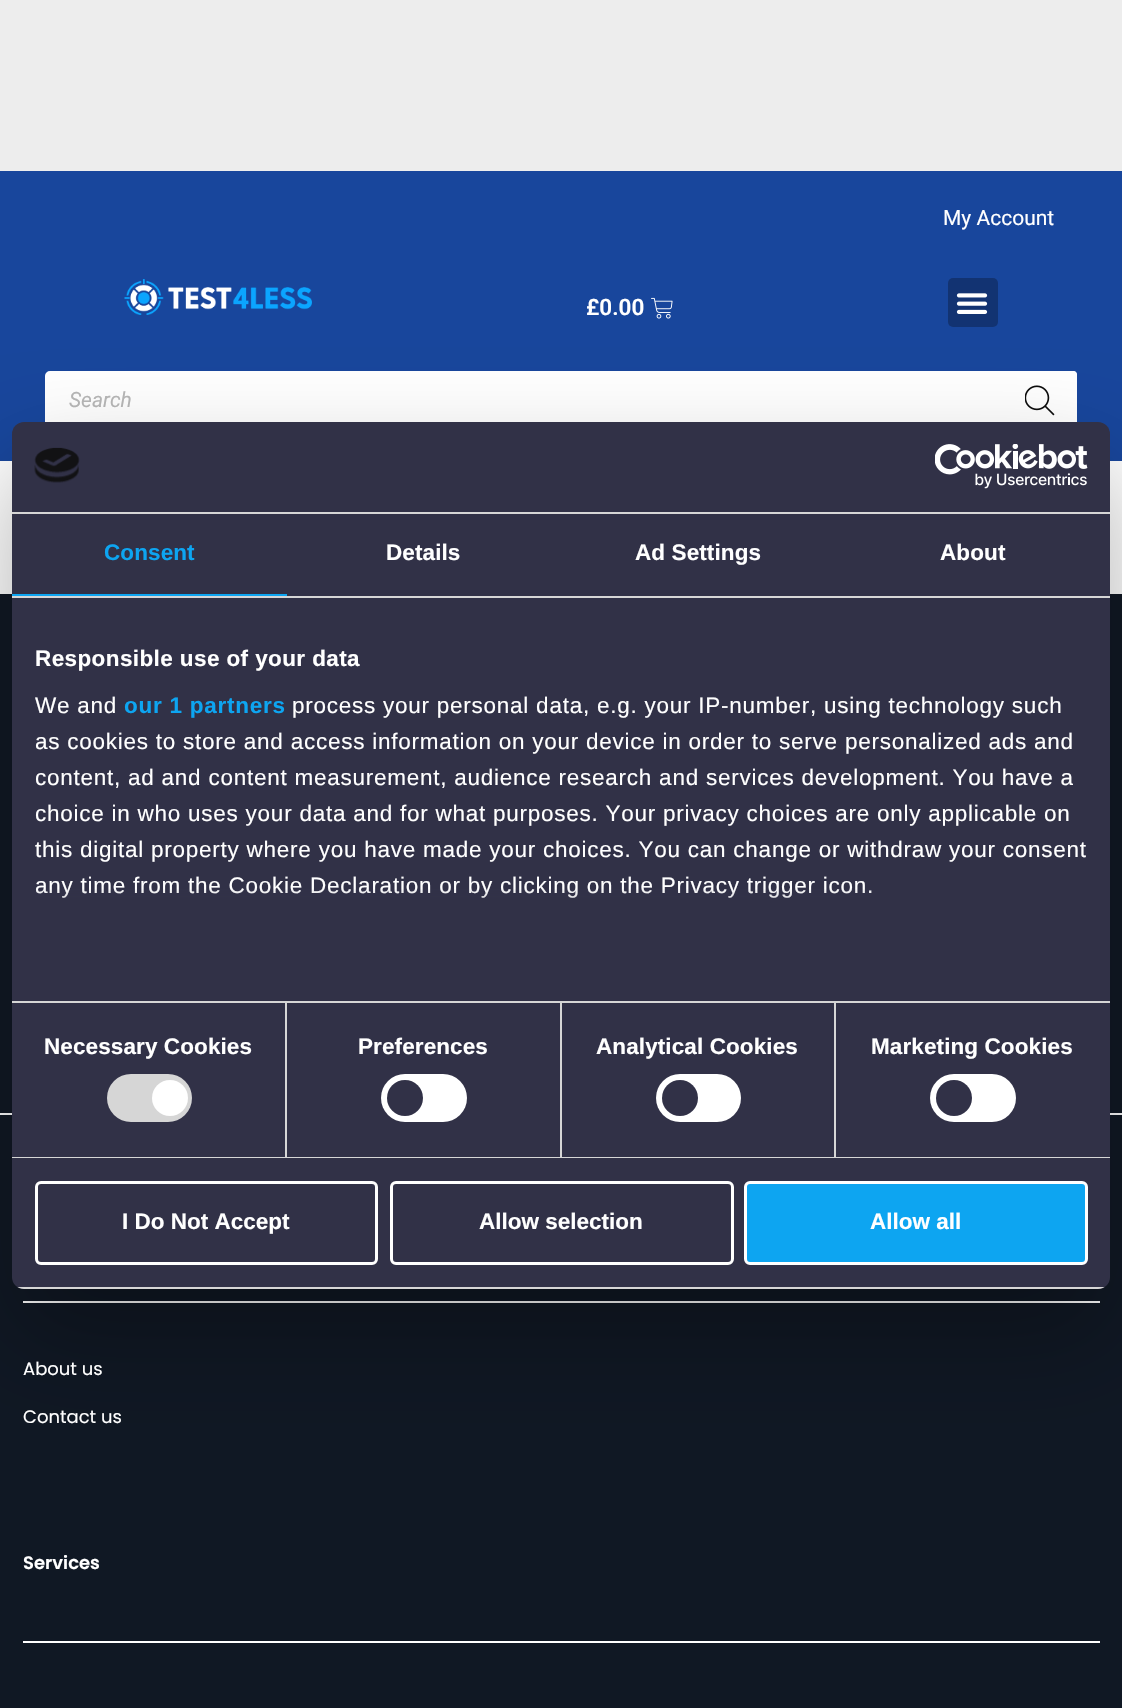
void draw(SkCanvas* canvas) {
    SkPaint paint;
    paint.setAntiAlias(true);
    auto face = [&](const char* family, int weight, float size, bool italic = false) {
        SkFontStyle style(weight, SkFontStyle::kNormal_Width,
            italic ? SkFontStyle::kItalic_Slant : SkFontStyle::kUpright_Slant);
        SkFont result(fontMgr->matchFamilyStyle(family, style), size);
        result.setSubpixel(true);
        return result;
    };
    auto write = [&](const char* s, float x, float y, const SkFont& font, SkColor color) {
        SkPaint ink(SkColor4f::FromColor(color));
        ink.setAntiAlias(true);
        canvas->drawString(s, x, y, font, ink);
    };
    auto writeSpaced = [&](const char* s, float x, float y, const SkFont& font, const SkPaint& ink, float letter, float word) {
        std::vector<SkGlyphID> glyphs(font.countText(s, strlen(s), SkTextEncoding::kUTF8));
        std::vector<float> xs(glyphs.size());
        font.textToGlyphs(s, strlen(s), SkTextEncoding::kUTF8, glyphs);
        font.getXPos(glyphs, xs, x);
        float extra = 0;
        for (size_t i = 0; i < glyphs.size(); i++) {
            xs[i] += extra;
            extra += letter + word * (glyphs[i] == font.unicharToGlyph(' '));
        }
        canvas->drawTextBlob(SkTextBlob::MakeFromPosHGlyphs(glyphs, xs, y, font), 0, 0, ink);
    };
    auto block = [&](float x, float y, float w, float h, SkColor color) {
        SkPaint ink(SkColor4f::FromColor(color));
        ink.setAntiAlias(true);
        canvas->drawRect(SkRect::MakeXYWH(x, y, w, h), ink);
    };
    auto card = [&](float x, float y, float w, float h, float radius, SkColor color) {
        SkPaint ink(SkColor4f::FromColor(color));
        ink.setAntiAlias(true);
        canvas->drawRoundRect(SkRect::MakeXYWH(x, y, w, h), radius, radius, ink);
    };
    auto paste = [&](const char* path, float x, float y, float w, float h) {
        auto image = SkImages::DeferredFromEncodedData(SkData::MakeFromFileName(path));
        canvas->drawImageRect(image, SkRect::MakeXYWH(x, y, w, h), SkSamplingOptions());
    };
    canvas->clear(SK_ColorWHITE);
    block(0, 0, 1122, 171, SkColorSetRGB(237, 237, 237));
    block(0, 171, 1122, 290, SkColorSetRGB(24, 70, 156));
    auto kFont1 = face("Roboto", 400, 21);
    write("My Account", 943, 225, kFont1, SK_ColorWHITE);
    paste("pic1.png", 124, 279, 188, 36);
    auto kFont2 = face("Roboto", 600, 22.5f);
    write("£0.00", 586, 315, kFont2, SK_ColorWHITE);
    paste("pic2.png", 651, 297, 22, 22);
    card(948, 278, 50, 49, 5, SkColorSetRGB(18, 51, 114));
    paste("pic3.png", 956, 293, 32, 21);
    paint.setColor(SK_ColorWHITE);
    canvas->drawRoundRect(SkRect::MakeXYWH(46, 372, 1030, 58), 4, 4, paint);
    paint.setStyle(SkPaint::kStroke_Style);
    paint.setStrokeWidth(2);
    canvas->drawRoundRect(SkRect::MakeXYWH(46, 372, 1030, 58), 4, 4, paint);
    auto kFont3 = face("Roboto", 400, 21, true);
    write("Search", 69, 407, kFont3, SkColorSetRGB(183, 183, 183));
    paint.setStyle(SkPaint::kFill_Style);
    canvas->drawPath(SkPathBuilder().moveTo(1002, 371).lineTo(1074, 371).cubicTo(1075.5f, 371, 1077, 372.5f, 1077, 374).lineTo(1077, 428).cubicTo(1077, 429.5f, 1075.5f, 431, 1074, 431).lineTo(1002, 431).close().detach(), paint);
    paste("pic4.png", 1025, 385, 30, 31);
    block(0, 594, 1122, 1114, SkColorSetRGB(16, 24, 36));
    block(0, 1113, 1122, 2, SK_ColorWHITE);
    block(23, 1301, 1077, 2, SK_ColorWHITE);
    paint.setColor(SkColorSetARGB(77, 0, 0, 0));
    paint.setMaskFilter(SkMaskFilter::MakeBlur(kNormal_SkBlurStyle, 51));
    canvas->drawRoundRect(SkRect::MakeXYWH(12, 470, 1098, 867), 12, 12, paint);
    paint.setMaskFilter(nullptr);
    card(12, 422, 1098, 867, 12, SkColorSetRGB(49, 49, 71));
    block(12, 512, 1098, 2, SkColorSetRGB(214, 214, 214));
    paste("pic5.png", 34, 447, 46, 36);
    paste("pic6.png", 935, 444, 153, 45);
    block(12, 596, 1098, 2, SkColorSetRGB(214, 214, 214));
    block(12, 594, 275, 2, SkColorSetRGB(13, 165, 241));
    auto kFont4 = face("Liberation Sans", 700, 22.5f);
    paint.setColor(SkColorSetRGB(13, 165, 241));
    writeSpaced("Consent", 104, 560, kFont4, paint, 0.1f, 0);
    paint.setColor(SK_ColorWHITE);
    writeSpaced("Details", 386, 560, kFont4, paint, 0.1f, 0);
    writeSpaced("Ad Settings", 635, 560, kFont4, paint, 0.1f, 0);
    writeSpaced("About", 940, 560, kFont4, paint, 0.1f, 0);
    block(285, 1002, 2, 155, SkColorSetRGB(214, 214, 214));
    block(560, 1002, 2, 155, SkColorSetRGB(214, 214, 214));
    block(834, 1002, 2, 155, SkColorSetRGB(214, 214, 214));
    block(12, 1001, 1098, 2, SkColorSetRGB(214, 214, 214));
    writeSpaced("Responsible use of your data", 35, 666, kFont4, paint, 0.4f, 0);
    auto kFont5 = face("Liberation Sans", 400, 22.5f);
    writeSpaced("We and", 35, 713, kFont5, paint, 0.75f, 0);
    paint.setColor(SkColorSetRGB(13, 165, 241));
    writeSpaced("our 1 partners", 124, 713, kFont4, paint, 0.75f, 0);
    paint.setColor(SK_ColorWHITE);
    writeSpaced("process your personal data, e.g. your IP-number, using technology such", 292, 713, kFont5, paint, 0.75f, 0);
    writeSpaced("as cookies to store and access information on your device in order to serve personalized ads and", 35, 749, kFont5, paint, 0.75f, 0);
    writeSpaced("content, ad and content measurement, audience research and services development. You have a", 35, 785, kFont5, paint, 0.75f, 0);
    writeSpaced("choice in who uses your data and for what purposes. Your privacy choices are only applicable on", 35, 821, kFont5, paint, 0.75f, 0);
    writeSpaced("this digital property where you have made your choices. You can change or withdraw your consent", 35, 857, kFont5, paint, 0.75f, 0);
    writeSpaced("any time from the Cookie Declaration or by clicking on the Privacy trigger icon.", 35, 893, kFont5, paint, 0.75f, 0);
    {
        const SkColor colors[] = {SkColorSetRGB(49, 49, 71), SkColorSetARGB(204, 49, 49, 71), SkColorSetARGB(0, 49, 49, 71)};
        const float stops[] = {0, 0.5f, 1};
        const SkPoint ends[] = {{551, 1000}, {551, 887}};
        paint.setShader(SkGradientShader::MakeLinear(ends, colors, stops, 3, SkTileMode::kClamp));
        paint.setAlpha(255);
    }
    canvas->drawRect(SkRect::MakeXYWH(35, 889, 836, 9), paint);
    block(12, 1157, 1098, 1, SkColorSetRGB(214, 214, 214));
    paint.setShader(nullptr);
    paint.setColor(SK_ColorWHITE);
    writeSpaced("Necessary Cookies", 44, 1054, kFont4, paint, 0.1f, 0);
    card(107, 1074, 85, 48, 24, SkColorSetRGB(214, 214, 214));
    canvas->drawCircle(170, 1098, 18, paint);
    writeSpaced("Preferences", 358, 1054, kFont4, paint, 0.1f, 0);
    card(381, 1074, 86, 48, 24, SK_ColorWHITE);
    paint.setColor(SkColorSetRGB(49, 49, 71));
    canvas->drawCircle(405, 1098, 18, paint);
    paint.setColor(SK_ColorWHITE);
    writeSpaced("Analytical Cookies", 596, 1054, kFont4, paint, 0.1f, 0);
    card(656, 1074, 85, 48, 24, SK_ColorWHITE);
    paint.setColor(SkColorSetRGB(49, 49, 71));
    canvas->drawCircle(680, 1098, 18, paint);
    paint.setColor(SK_ColorWHITE);
    writeSpaced("Marketing Cookies", 871, 1054, kFont4, paint, 0.1f, 0);
    card(930, 1074, 86, 48, 24, SK_ColorWHITE);
    paint.setColor(SkColorSetRGB(49, 49, 71));
    canvas->drawCircle(954, 1098, 18, paint);
    canvas->save();
    canvas->clipPath(SkPathBuilder().moveTo(24, 422).lineTo(1098, 422).cubicTo(1104.5f, 422, 1110, 427.5f, 1110, 434).lineTo(1110, 1277).cubicTo(1110, 1283.5f, 1104.5f, 1289, 1098, 1289).lineTo(24, 1289).cubicTo(17.5f, 1289, 12, 1283.5f, 12, 1277).lineTo(12, 434).cubicTo(12, 427.5f, 17.5f, 422, 24, 422).close().detach(), true);
    block(12, 1287, 1098, 2, SkColorSetRGB(214, 214, 214));
    canvas->restore();
    paint.setStyle(SkPaint::kStroke_Style);
    paint.setStrokeWidth(3);
    paint.setColor(SK_ColorWHITE);
    canvas->drawRoundRect(SkRect::MakeXYWH(36.5f, 1182.5f, 340, 81), 4.5f, 4.5f, paint);
    write("I Do Not Accept", 122, 1229, kFont4, SK_ColorWHITE);
    canvas->drawRoundRect(SkRect::MakeXYWH(391.5f, 1182.5f, 341, 81), 4.5f, 4.5f, paint);
    write("Allow selection", 479, 1229, kFont4, SK_ColorWHITE);
    paint.setStyle(SkPaint::kFill_Style);
    paint.setColor(SkColorSetRGB(13, 165, 241));
    canvas->drawRoundRect(SkRect::MakeXYWH(745.5f, 1182.5f, 341, 81), 4.5f, 4.5f, paint);
    paint.setStyle(SkPaint::kStroke_Style);
    paint.setColor(SK_ColorWHITE);
    canvas->drawRoundRect(SkRect::MakeXYWH(745.5f, 1182.5f, 341, 81), 4.5f, 4.5f, paint);
    write("Allow all", 870, 1229, kFont4, SK_ColorWHITE);
    auto kFont6 = face("Poppins", 400, 18);
    write("About us", 23, 1375, kFont6, SK_ColorWHITE);
    write("Contact us", 23, 1423, kFont6, SK_ColorWHITE);
    block(23, 1641, 1077, 2, SK_ColorWHITE);
    auto kFont7 = face("Poppins", 600, 18);
    write("Services", 23, 1569, kFont7, SK_ColorWHITE);
}
